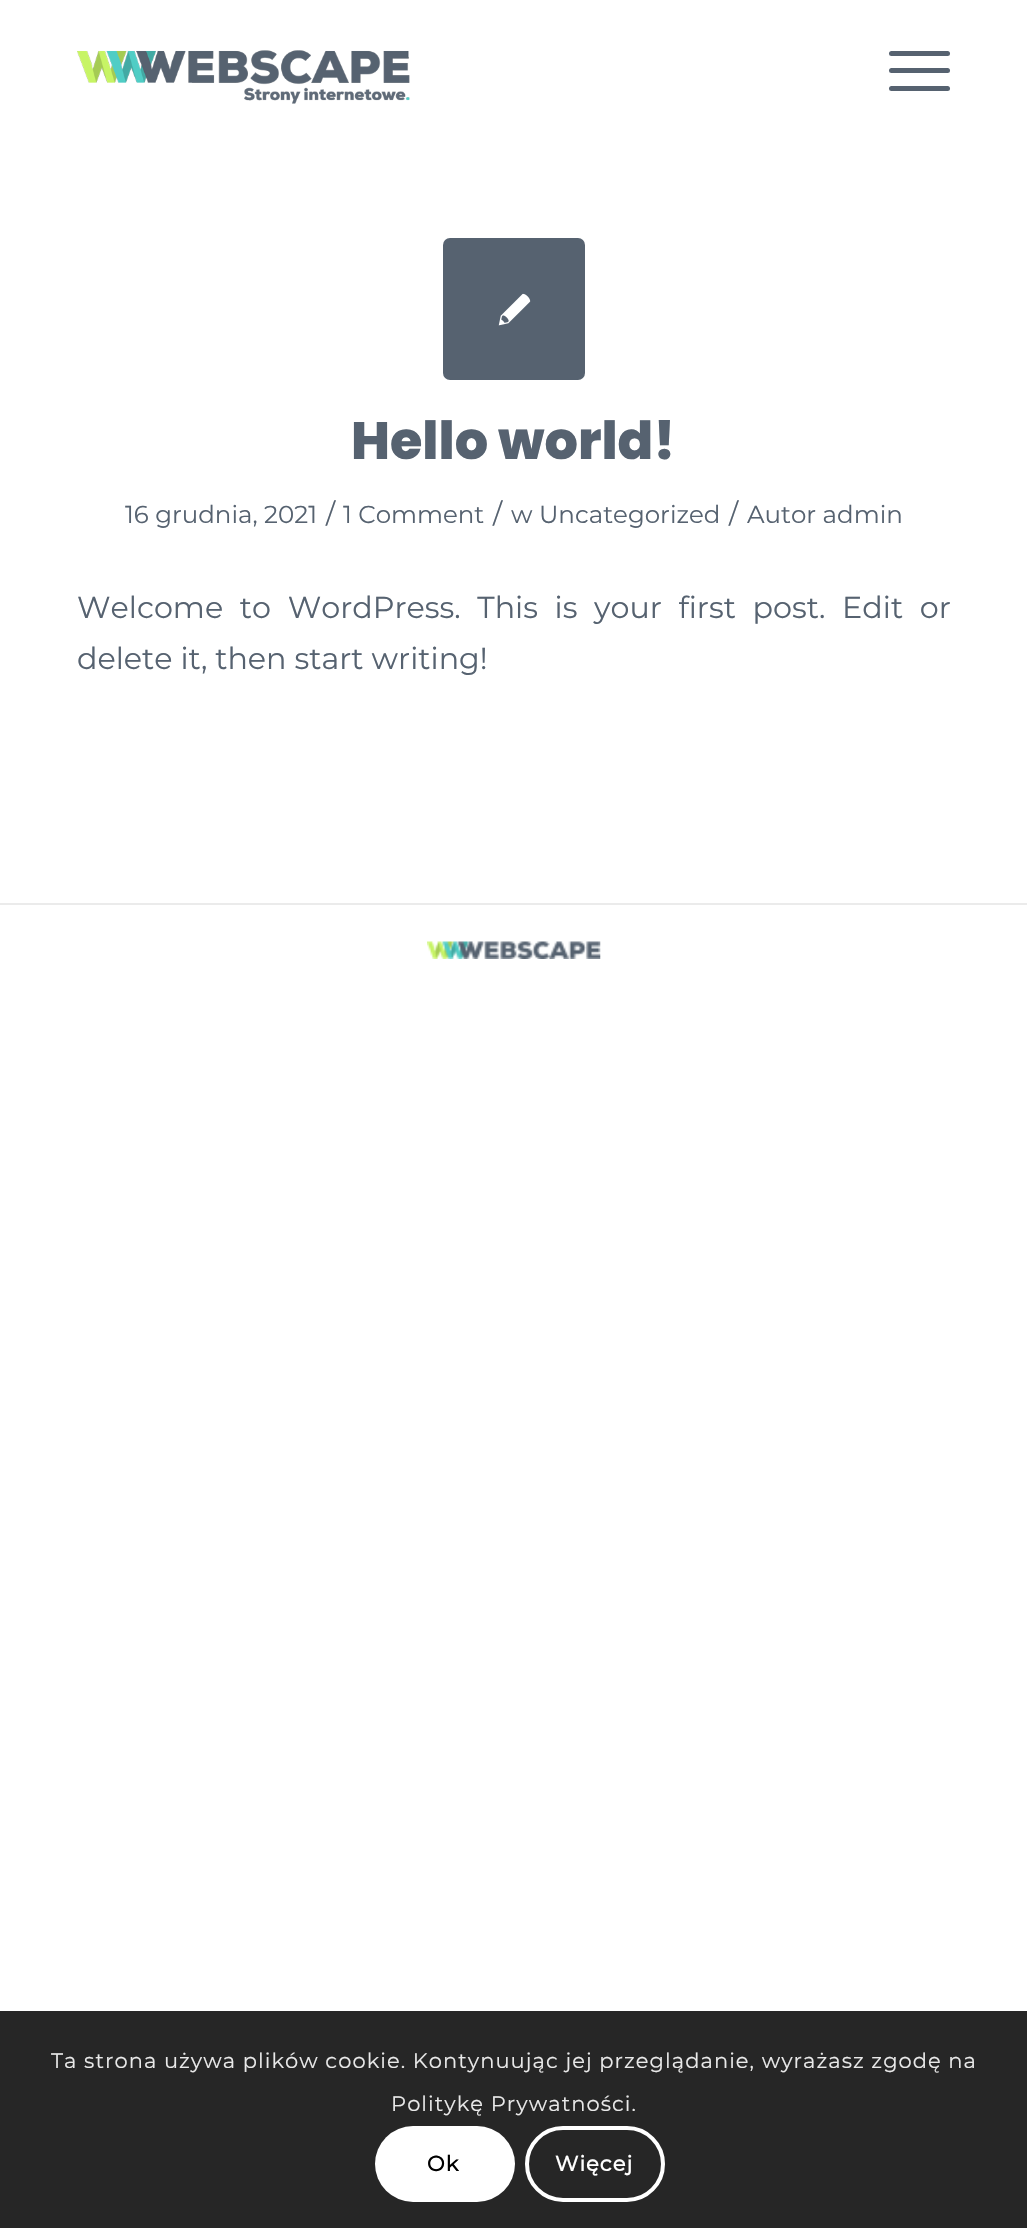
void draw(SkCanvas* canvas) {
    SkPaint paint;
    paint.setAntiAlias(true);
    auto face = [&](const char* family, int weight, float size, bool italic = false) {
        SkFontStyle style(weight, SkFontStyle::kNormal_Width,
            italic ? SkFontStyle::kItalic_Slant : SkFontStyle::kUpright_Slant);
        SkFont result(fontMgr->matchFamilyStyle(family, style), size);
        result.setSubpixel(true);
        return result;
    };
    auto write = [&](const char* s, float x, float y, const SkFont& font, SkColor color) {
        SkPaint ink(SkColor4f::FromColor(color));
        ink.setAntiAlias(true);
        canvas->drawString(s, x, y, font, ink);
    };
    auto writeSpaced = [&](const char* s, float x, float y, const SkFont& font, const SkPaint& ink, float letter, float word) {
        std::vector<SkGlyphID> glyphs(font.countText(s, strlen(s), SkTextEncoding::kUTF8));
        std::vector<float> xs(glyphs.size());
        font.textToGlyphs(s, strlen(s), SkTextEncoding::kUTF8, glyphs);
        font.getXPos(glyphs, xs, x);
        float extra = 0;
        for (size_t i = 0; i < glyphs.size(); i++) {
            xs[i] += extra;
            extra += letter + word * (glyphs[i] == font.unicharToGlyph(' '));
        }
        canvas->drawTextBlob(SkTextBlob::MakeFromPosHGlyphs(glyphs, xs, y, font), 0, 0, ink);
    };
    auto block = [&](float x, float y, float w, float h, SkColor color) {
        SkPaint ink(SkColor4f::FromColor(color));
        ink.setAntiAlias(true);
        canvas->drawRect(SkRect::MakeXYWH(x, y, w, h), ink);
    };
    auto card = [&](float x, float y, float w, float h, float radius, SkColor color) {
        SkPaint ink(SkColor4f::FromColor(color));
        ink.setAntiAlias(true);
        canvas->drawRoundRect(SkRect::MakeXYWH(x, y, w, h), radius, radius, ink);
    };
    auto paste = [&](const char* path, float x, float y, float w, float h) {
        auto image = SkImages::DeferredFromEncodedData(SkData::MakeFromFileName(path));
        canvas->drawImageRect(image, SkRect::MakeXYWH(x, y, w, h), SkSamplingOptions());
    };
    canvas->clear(SK_ColorWHITE);
    paste("pic1.png", 77, 50, 333, 54);
    card(889, 68, 61, 5, 2.5f, SkColorSetRGB(86, 98, 112));
    card(889, 51, 61, 5, 2.5f, SkColorSetRGB(86, 98, 112));
    card(889, 86, 61, 5, 2.5f, SkColorSetRGB(86, 98, 112));
    card(443, 238, 142, 142, 7, SkColorSetRGB(86, 98, 112));
    paste("pic2.png", 498, 293, 33, 33);
    auto kFont1 = face("Poppins", 800, 52.5f);
    write("Hello world!", 351, 459, kFont1, SkColorSetRGB(86, 98, 112));
    auto kFont2 = face("Montserrat", 100, 24.5f);
    write("16 grudnia, 2021", 125, 523, kFont2, SkColorSetRGB(86, 98, 112));
    auto kFont3 = face("Montserrat", 100, 27);
    write("/", 326, 523, kFont3, SkColorSetRGB(86, 98, 112));
    write("1 Comment", 343, 523, kFont2, SkColorSetRGB(86, 98, 112));
    write("/", 493, 523, kFont3, SkColorSetRGB(86, 98, 112));
    write("w Uncategorized", 511, 523, kFont2, SkColorSetRGB(86, 98, 112));
    write("/", 729, 523, kFont3, SkColorSetRGB(86, 98, 112));
    write("Autor admin", 747, 523, kFont2, SkColorSetRGB(86, 98, 112));
    auto kFont4 = face("Montserrat", 100, 30.2f);
    paint.setColor(SkColorSetRGB(86, 98, 112));
    writeSpaced("Welcome to WordPress. This is your first post. Edit or", 77, 618, kFont4, paint, 0, 8.75f);
    write("delete it, then start writing!", 77, 669, kFont4, SkColorSetRGB(86, 98, 112));
    block(0, 903, 1027, 2, SkColorSetRGB(235, 235, 235));
    paste("pic3.png", 427, 941, 174, 18);
    block(0, 2011, 1027, 217, SkColorSetRGB(38, 38, 38));
    auto kFont5 = face("Montserrat", 100, 21);
    paint.setColor(SkColorSetRGB(233, 233, 233));
    writeSpaced("Ta strona używa plików cookie. Kontynuując jej przeglądanie, wyrażasz zgodę na", 51, 2068, kFont5, paint, 1.05f, 0);
    writeSpaced("Politykę Prywatności.", 391, 2111, kFont5, paint, 1.05f, 0);
    card(375, 2126, 140, 76, 38, SK_ColorWHITE);
    auto kFont6 = face("Montserrat", 700, 21);
    paint.setColor(SK_ColorBLACK);
    writeSpaced("Ok", 427, 2171, kFont6, paint, 1.05f, 0);
    paint.setStyle(SkPaint::kStroke_Style);
    paint.setStrokeWidth(4);
    paint.setColor(SK_ColorWHITE);
    canvas->drawRoundRect(SkRect::MakeXYWH(527, 2128, 136, 72), 36, 36, paint);
    paint.setStyle(SkPaint::kFill_Style);
    writeSpaced("Więcej", 555, 2171, kFont6, paint, 1.05f, 0);
}
